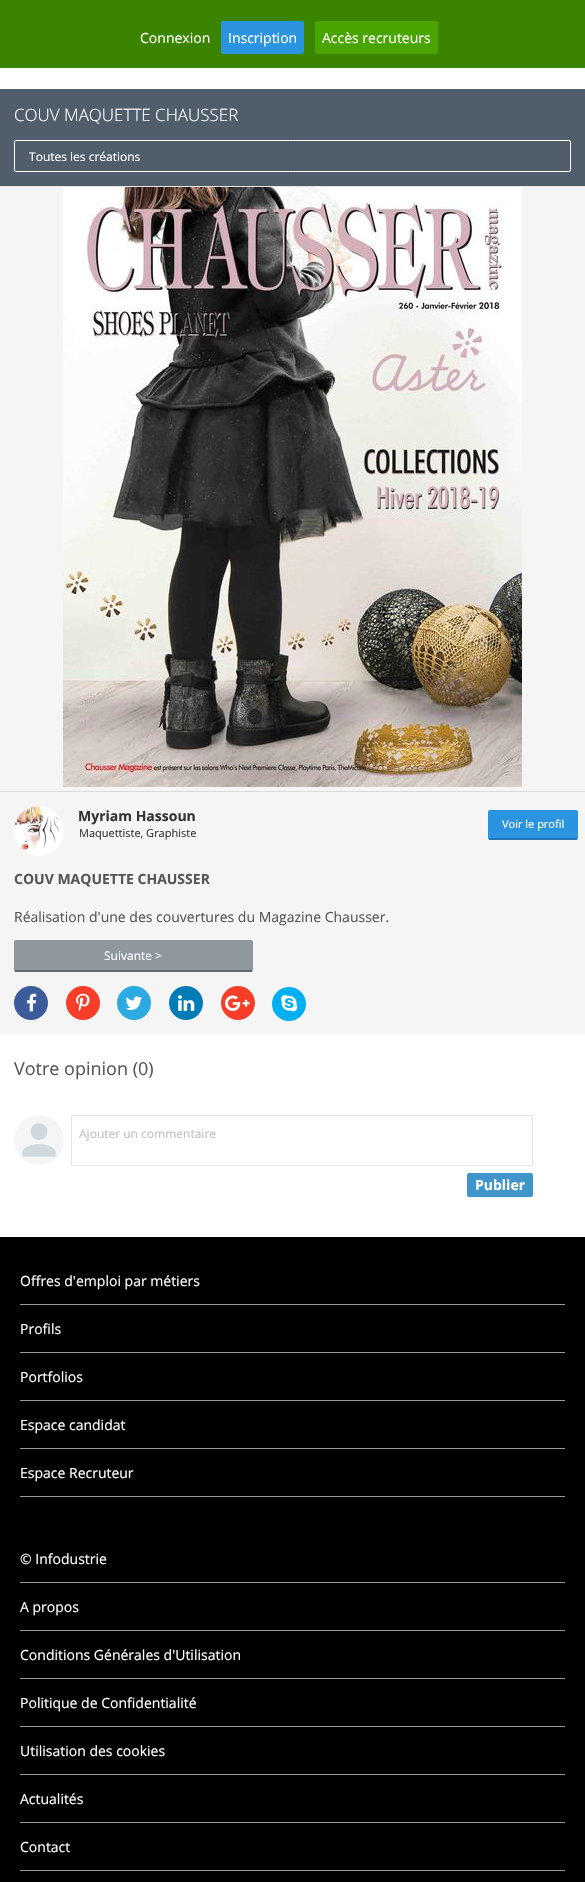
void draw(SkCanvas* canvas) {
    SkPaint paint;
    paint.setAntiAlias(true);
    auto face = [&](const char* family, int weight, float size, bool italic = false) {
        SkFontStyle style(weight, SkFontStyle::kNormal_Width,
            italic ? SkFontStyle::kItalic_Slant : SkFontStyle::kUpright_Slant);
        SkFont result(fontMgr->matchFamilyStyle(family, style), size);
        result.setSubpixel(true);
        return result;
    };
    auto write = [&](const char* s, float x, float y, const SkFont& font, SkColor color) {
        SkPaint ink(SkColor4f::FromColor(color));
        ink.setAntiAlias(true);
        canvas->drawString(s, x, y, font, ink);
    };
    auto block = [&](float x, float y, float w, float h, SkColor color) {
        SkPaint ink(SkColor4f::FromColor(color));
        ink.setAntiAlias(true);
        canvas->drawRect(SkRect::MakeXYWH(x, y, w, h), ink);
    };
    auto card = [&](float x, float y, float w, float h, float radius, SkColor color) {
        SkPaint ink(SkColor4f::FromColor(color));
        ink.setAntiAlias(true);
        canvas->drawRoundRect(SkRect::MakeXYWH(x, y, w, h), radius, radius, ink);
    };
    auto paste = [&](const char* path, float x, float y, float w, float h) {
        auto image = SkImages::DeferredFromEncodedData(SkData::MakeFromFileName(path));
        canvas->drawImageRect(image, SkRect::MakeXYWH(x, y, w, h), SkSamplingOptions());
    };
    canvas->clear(SK_ColorWHITE);
    block(0, 0, 585, 68, SkColorSetRGB(58, 132, 0));
    auto kFont1 = face("Open Sans", 400, 14);
    write("Connexion", 140, 43, kFont1, SK_ColorWHITE);
    card(221, 21, 83, 33, 2, SkColorSetRGB(43, 148, 225));
    write("Inscription", 228, 43, kFont1, SK_ColorWHITE);
    card(315, 21, 123, 33, 2, SkColorSetRGB(74, 164, 0));
    write("Accès recruteurs", 322, 43, kFont1, SK_ColorWHITE);
    block(0, 89, 585, 97, SkColorSetRGB(80, 93, 107));
    block(0, 186, 585, 1, SkColorSetRGB(229, 229, 229));
    auto kFont2 = face("Open Sans", 300, 17);
    write("COUV MAQUETTE CHAUSSER", 14, 121, kFont2, SK_ColorWHITE);
    paint.setStyle(SkPaint::kStroke_Style);
    paint.setStrokeWidth(1);
    paint.setColor(SK_ColorWHITE);
    canvas->drawRoundRect(SkRect::MakeXYWH(14.5f, 140.5f, 556, 31), 1.5f, 1.5f, paint);
    auto kFont3 = face("Open Sans", 400, 12);
    write("Toutes les créations", 29, 161, kFont3, SK_ColorWHITE);
    block(0, 187, 585, 848, SkColorSetRGB(245, 245, 245));
    paste("pic1.png", 63, 187, 459, 600);
    block(0, 791, 585, 1, SkColorSetRGB(218, 218, 218));
    paste("pic2.png", 14, 806, 50, 50);
    auto kFont4 = face("Open Sans", 700, 14);
    write("Myriam Hassoun", 78, 821, kFont4, SkColorSetRGB(51, 51, 51));
    card(488, 810, 90, 30, 2, SkColorSetRGB(43, 148, 225));
    block(489, 838, 88, 2, SkColorSetARGB(51, 0, 0, 0));
    auto kFont5 = face("Open Sans", 400, 11);
    write("Voir le profil", 502, 828, kFont5, SK_ColorWHITE);
    write("Maquettiste, Graphiste", 79, 837, kFont5, SkColorSetRGB(51, 51, 51));
    write("COUV MAQUETTE CHAUSSER", 14, 884, kFont4, SkColorSetRGB(85, 85, 85));
    write("Réalisation d'une des couvertures du Magazine Chausser.", 14, 922, kFont1, SkColorSetRGB(85, 85, 85));
    card(14, 940, 239, 32, 2, SkColorSetRGB(143, 151, 159));
    block(15, 970, 237, 2, SkColorSetARGB(77, 0, 0, 0));
    write("Suivante >", 104, 960, kFont3, SK_ColorWHITE);
    paint.setStyle(SkPaint::kFill_Style);
    paint.setColor(SkColorSetRGB(60, 91, 155));
    canvas->drawCircle(31, 1003, 17, paint);
    paste("pic3.png", 27, 993, 10, 19);
    paint.setColor(SkColorSetRGB(246, 62, 40));
    canvas->drawCircle(83, 1003, 17, paint);
    paste("pic4.png", 76, 993, 14, 19);
    paint.setColor(SkColorSetRGB(45, 170, 225));
    canvas->drawCircle(134, 1003, 17, paint);
    paste("pic5.png", 125, 996, 17, 14);
    paint.setColor(SkColorSetRGB(0, 123, 182));
    canvas->drawCircle(186, 1003, 17, paint);
    paste("pic6.png", 178, 995, 17, 16);
    paint.setColor(SkColorSetRGB(246, 62, 40));
    canvas->drawCircle(238, 1003, 17, paint);
    paste("pic7.png", 225, 995, 25, 16);
    paint.setColor(SkColorSetRGB(0, 175, 240));
    canvas->drawCircle(289, 1004, 17, paint);
    paste("pic8.png", 281, 995, 17, 17);
    auto kFont6 = face("Open Sans", 400, 18);
    write("Votre opinion (0)", 14, 1075, kFont6, SkColorSetRGB(85, 85, 85));
    paste("pic9.png", 14, 1115, 50, 50);
    paint.setStyle(SkPaint::kStroke_Style);
    paint.setColor(SkColorSetRGB(229, 229, 229));
    canvas->drawRect(SkRect::MakeXYWH(71.5f, 1115.5f, 461, 50), paint);
    write("Ajouter un commentaire", 79, 1138, kFont3, SkColorSetRGB(192, 192, 192));
    paint.setStyle(SkPaint::kFill_Style);
    paint.setColor(SkColorSetRGB(64, 149, 203));
    canvas->drawRoundRect(SkRect::MakeXYWH(467.5f, 1173.5f, 65, 23), 1.5f, 1.5f, paint);
    paint.setStyle(SkPaint::kStroke_Style);
    canvas->drawRoundRect(SkRect::MakeXYWH(467.5f, 1173.5f, 65, 23), 1.5f, 1.5f, paint);
    write("Publier", 475, 1190, kFont4, SK_ColorWHITE);
    block(0, 1237, 585, 645, SK_ColorBLACK);
    block(20, 1304, 545, 1, SkColorSetRGB(153, 153, 153));
    write("Offres d'emploi par métiers", 20, 1286, kFont1, SK_ColorWHITE);
    block(20, 1352, 545, 1, SkColorSetRGB(153, 153, 153));
    write("Profils", 20, 1334, kFont1, SK_ColorWHITE);
    block(20, 1400, 545, 1, SkColorSetRGB(153, 153, 153));
    write("Portfolios", 20, 1382, kFont1, SK_ColorWHITE);
    block(20, 1448, 545, 1, SkColorSetRGB(153, 153, 153));
    write("Espace candidat", 20, 1430, kFont1, SK_ColorWHITE);
    block(20, 1496, 545, 1, SkColorSetRGB(153, 153, 153));
    write("Espace Recruteur", 20, 1478, kFont1, SK_ColorWHITE);
    block(20, 1582, 545, 1, SkColorSetRGB(153, 153, 153));
    write("© Infodustrie", 20, 1564, kFont1, SK_ColorWHITE);
    block(20, 1630, 545, 1, SkColorSetRGB(153, 153, 153));
    write("A propos", 20, 1612, kFont1, SK_ColorWHITE);
    block(20, 1678, 545, 1, SkColorSetRGB(153, 153, 153));
    write("Conditions Générales d'Utilisation", 20, 1660, kFont1, SK_ColorWHITE);
    block(20, 1726, 545, 1, SkColorSetRGB(153, 153, 153));
    write("Politique de Confidentialité", 20, 1708, kFont1, SK_ColorWHITE);
    block(20, 1774, 545, 1, SkColorSetRGB(153, 153, 153));
    write("Utilisation des cookies", 20, 1756, kFont1, SK_ColorWHITE);
    block(20, 1822, 545, 1, SkColorSetRGB(153, 153, 153));
    write("Actualités", 20, 1804, kFont1, SK_ColorWHITE);
    block(20, 1870, 545, 1, SkColorSetRGB(153, 153, 153));
    write("Contact", 20, 1852, kFont1, SK_ColorWHITE);
}
